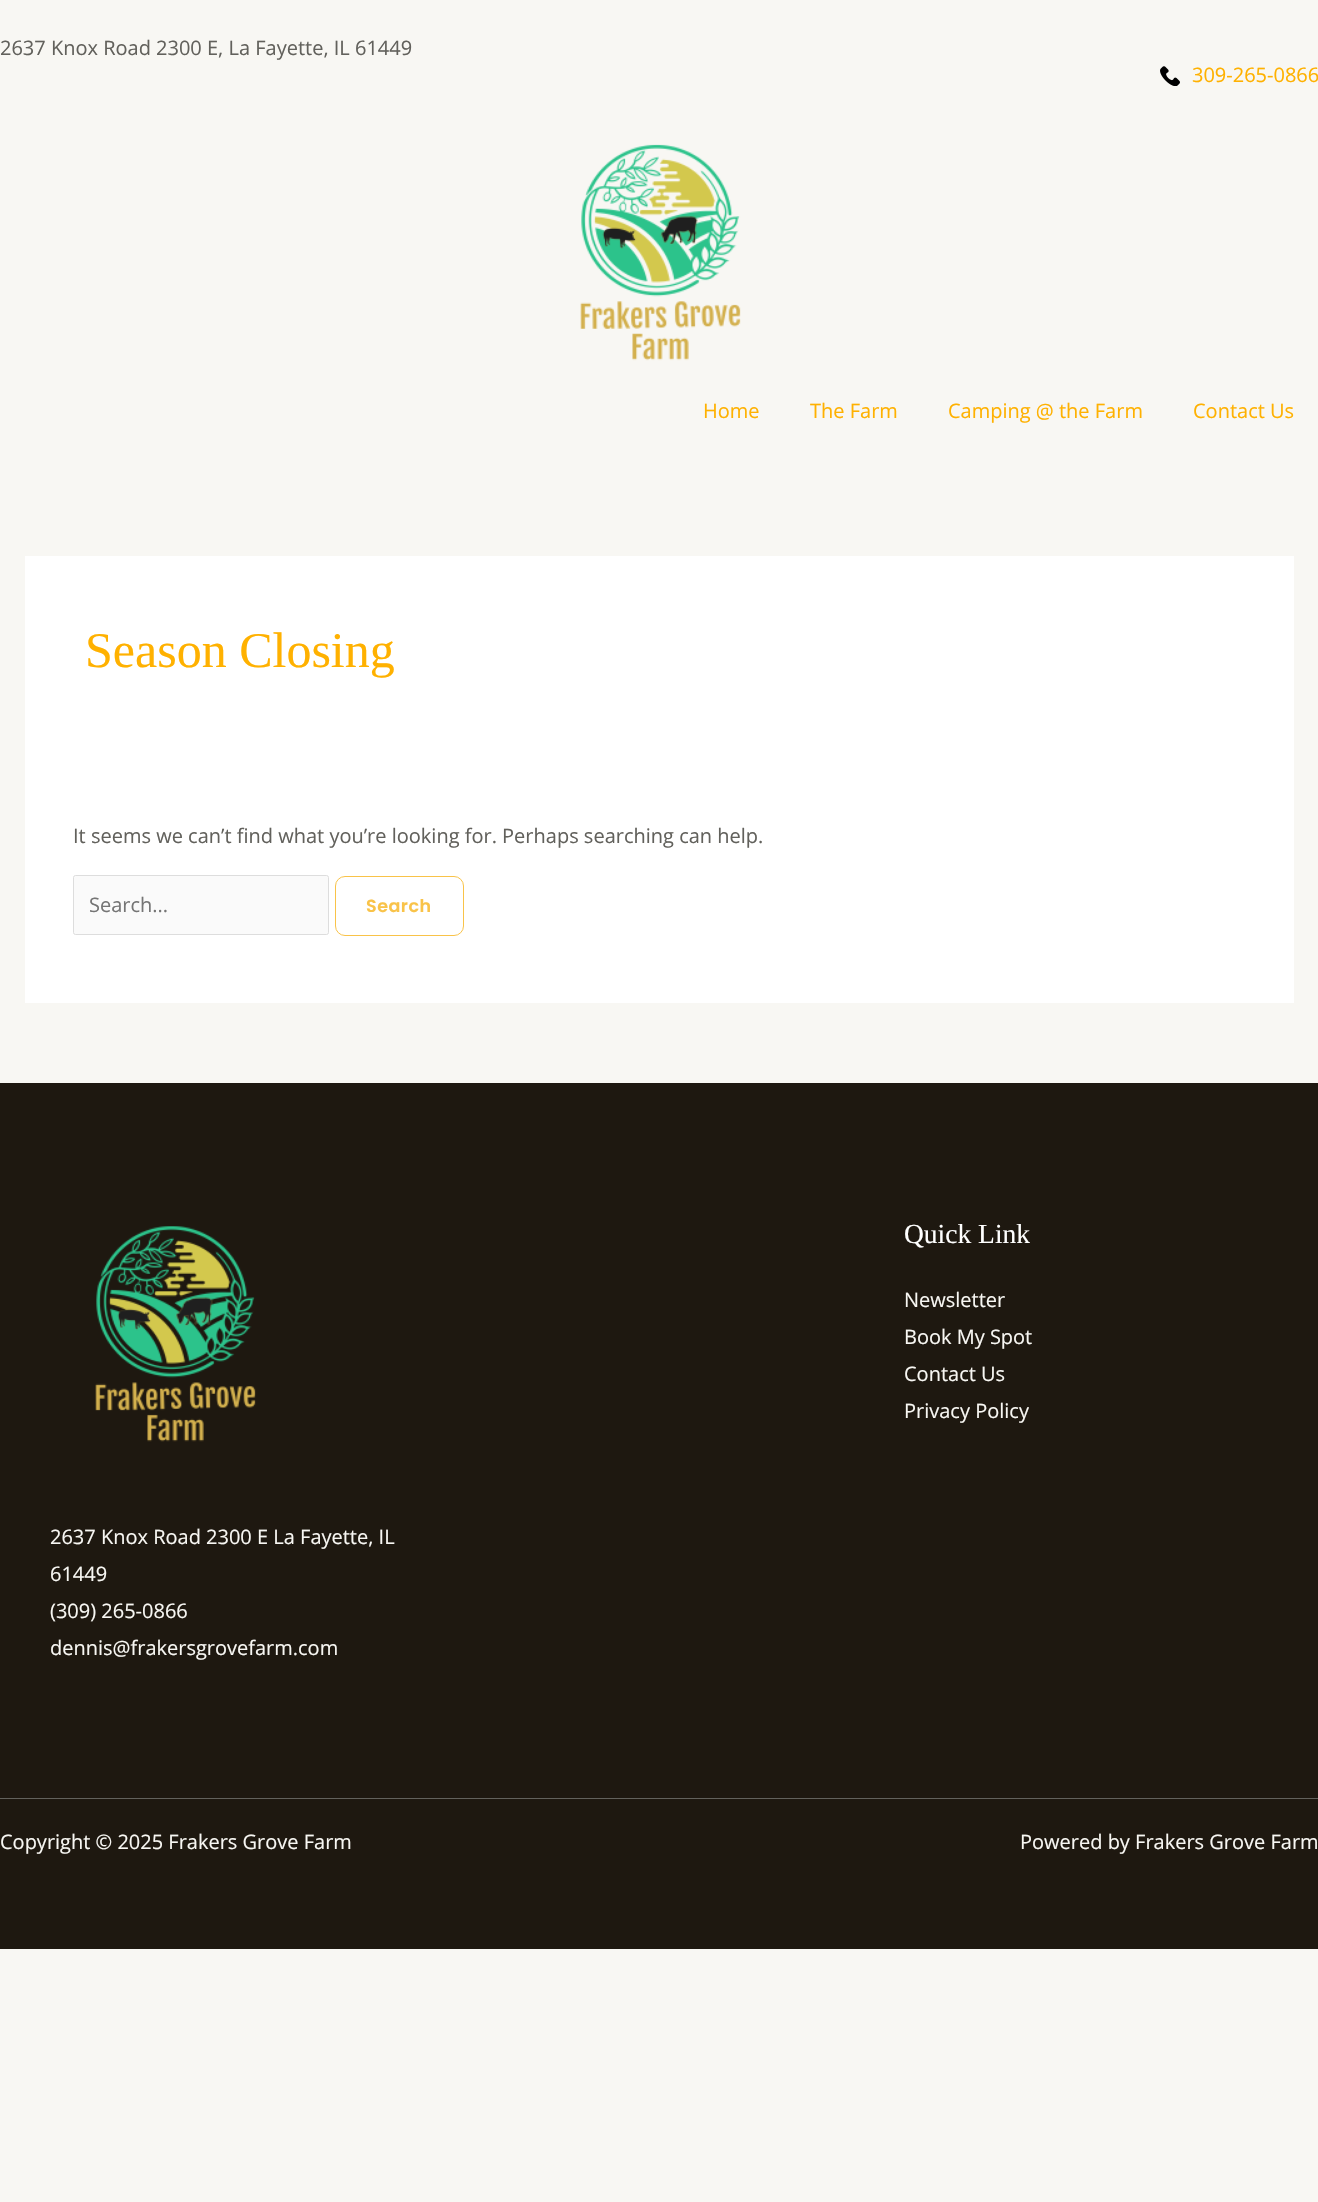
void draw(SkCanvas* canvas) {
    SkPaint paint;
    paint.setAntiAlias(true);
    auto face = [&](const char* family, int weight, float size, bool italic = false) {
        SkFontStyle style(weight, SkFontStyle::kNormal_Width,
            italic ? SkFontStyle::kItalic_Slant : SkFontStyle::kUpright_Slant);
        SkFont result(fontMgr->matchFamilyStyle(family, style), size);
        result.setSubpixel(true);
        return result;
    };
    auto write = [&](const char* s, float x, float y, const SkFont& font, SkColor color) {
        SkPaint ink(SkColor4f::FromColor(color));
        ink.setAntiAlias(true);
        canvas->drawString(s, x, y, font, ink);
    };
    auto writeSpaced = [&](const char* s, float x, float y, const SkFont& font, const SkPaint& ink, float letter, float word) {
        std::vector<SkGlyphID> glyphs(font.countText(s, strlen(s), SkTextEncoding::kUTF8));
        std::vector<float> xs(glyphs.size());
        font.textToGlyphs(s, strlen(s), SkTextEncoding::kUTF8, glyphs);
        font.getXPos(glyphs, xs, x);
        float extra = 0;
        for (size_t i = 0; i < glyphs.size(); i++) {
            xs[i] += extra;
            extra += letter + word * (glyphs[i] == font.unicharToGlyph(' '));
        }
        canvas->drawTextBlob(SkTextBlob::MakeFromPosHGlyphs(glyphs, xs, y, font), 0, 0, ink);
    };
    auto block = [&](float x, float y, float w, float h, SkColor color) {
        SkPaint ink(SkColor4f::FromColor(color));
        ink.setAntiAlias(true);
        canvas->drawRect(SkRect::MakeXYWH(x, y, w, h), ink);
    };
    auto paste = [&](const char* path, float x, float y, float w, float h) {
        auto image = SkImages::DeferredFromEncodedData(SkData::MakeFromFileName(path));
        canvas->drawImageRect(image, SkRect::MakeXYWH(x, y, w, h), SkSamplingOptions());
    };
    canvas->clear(SkColorSetRGB(248, 247, 243));
    auto kFont1 = face("Open Sans", 400, 20);
    write("2637 Knox Road 2300 E, La Fayette, IL 61449", 0, 55, kFont1, SkColorSetRGB(98, 97, 92));
    paste("pic1.png", 1160, 66, 20, 20);
    write("309-265-0866", 1192, 82, kFont1, SkColorSetRGB(255, 177, 0));
    paste("pic2.png", 580, 144, 161, 217);
    write("Home", 703, 418, kFont1, SkColorSetRGB(255, 177, 0));
    write("The Farm", 810, 418, kFont1, SkColorSetRGB(255, 177, 0));
    write("Camping @ the Farm", 948, 418, kFont1, SkColorSetRGB(255, 177, 0));
    write("Contact Us", 1193, 418, kFont1, SkColorSetRGB(255, 177, 0));
    block(25, 556, 1269, 447, SK_ColorWHITE);
    auto kFont2 = face("Liberation Serif", 400, 50);
    write("Season Closing", 85, 667, kFont2, SkColorSetRGB(255, 177, 0));
    write("It seems we can’t find what you’re looking for. Perhaps searching can help.", 73, 843, kFont1, SkColorSetRGB(98, 97, 92));
    paint.setColor(SkColorSetRGB(250, 250, 250));
    canvas->drawRoundRect(SkRect::MakeXYWH(73.5f, 875.5f, 255, 59), 2, 2, paint);
    paint.setStyle(SkPaint::kStroke_Style);
    paint.setStrokeWidth(1);
    paint.setColor(SkColorSetRGB(221, 221, 221));
    canvas->drawRoundRect(SkRect::MakeXYWH(73.5f, 875.5f, 255, 59), 2, 2, paint);
    write("Search...", 89, 912, kFont1, SkColorSetRGB(117, 117, 117));
    paint.setColor(SkColorSetRGB(249, 195, 73));
    canvas->drawRoundRect(SkRect::MakeXYWH(335.5f, 876.5f, 128, 59), 9.5f, 9.5f, paint);
    auto kFont3 = face("Poppins", 600, 17.5f);
    paint.setStyle(SkPaint::kFill_Style);
    writeSpaced("Search", 366, 912, kFont3, paint, 0.5f, 0);
    block(0, 1083, 1318, 866, SkColorSetRGB(30, 24, 16));
    auto kFont4 = face("Liberation Serif", 400, 27.5f);
    write("Quick Link", 904, 1243, kFont4, SK_ColorWHITE);
    write("Newsletter", 904, 1307, kFont1, SkColorSetRGB(248, 247, 243));
    write("Book My Spot", 904, 1344, kFont1, SkColorSetRGB(248, 247, 243));
    write("Contact Us", 904, 1381, kFont1, SkColorSetRGB(248, 247, 243));
    write("Privacy Policy", 904, 1418, kFont1, SkColorSetRGB(248, 247, 243));
    paste("pic3.png", 95, 1226, 161, 216);
    write("2637 Knox Road 2300 E La Fayette, IL", 50, 1544, kFont1, SkColorSetRGB(248, 247, 243));
    write("61449", 50, 1581, kFont1, SkColorSetRGB(248, 247, 243));
    write("(309) 265-0866", 50, 1618, kFont1, SkColorSetRGB(248, 247, 243));
    write("dennis@frakersgrovefarm.com", 50, 1655, kFont1, SkColorSetRGB(248, 247, 243));
    block(0, 1798, 1318, 1, SkColorSetRGB(98, 97, 92));
    write("Copyright © 2025 Frakers Grove Farm", 0, 1849, kFont1, SkColorSetRGB(248, 247, 243));
    write("Powered by Frakers Grove Farm", 1020, 1849, kFont1, SkColorSetRGB(248, 247, 243));
}
